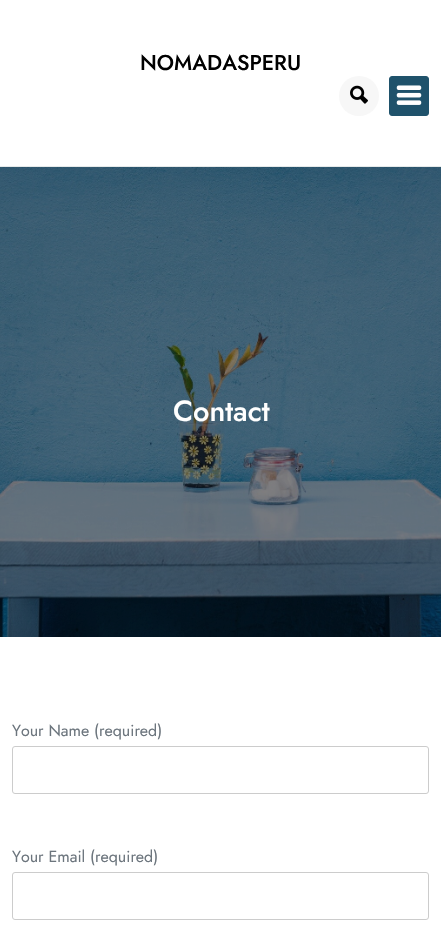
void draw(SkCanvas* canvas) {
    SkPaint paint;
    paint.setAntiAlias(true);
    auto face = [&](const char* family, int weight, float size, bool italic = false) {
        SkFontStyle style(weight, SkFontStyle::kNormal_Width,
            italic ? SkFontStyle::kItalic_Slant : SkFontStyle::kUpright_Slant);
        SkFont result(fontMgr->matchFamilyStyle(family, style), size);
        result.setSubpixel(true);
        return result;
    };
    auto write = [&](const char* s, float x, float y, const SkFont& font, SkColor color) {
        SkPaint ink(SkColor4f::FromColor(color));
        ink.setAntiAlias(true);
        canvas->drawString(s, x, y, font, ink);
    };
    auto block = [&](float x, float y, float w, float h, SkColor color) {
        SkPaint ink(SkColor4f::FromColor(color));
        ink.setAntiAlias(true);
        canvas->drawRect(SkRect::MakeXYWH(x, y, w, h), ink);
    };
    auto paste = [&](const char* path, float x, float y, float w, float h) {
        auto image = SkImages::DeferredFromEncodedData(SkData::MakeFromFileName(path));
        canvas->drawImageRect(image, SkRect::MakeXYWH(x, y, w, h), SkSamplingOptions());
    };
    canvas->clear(SK_ColorWHITE);
    block(0, 166, 441, 1, SkColorSetRGB(230, 234, 234));
    auto kFont1 = face("Jost", 500, 21.5f);
    write("NOMADASPERU", 140, 70, kFont1, SK_ColorBLACK);
    paint.setColor(SkColorSetRGB(247, 247, 247));
    canvas->drawCircle(359, 96, 20, paint);
    paste("pic1.png", 350, 85, 18, 19);
    paint.setColor(SkColorSetRGB(31, 82, 107));
    canvas->drawRoundRect(SkRect::MakeXYWH(389.5f, 76.5f, 39, 39), 2.5f, 2.5f, paint);
    paint.setStyle(SkPaint::kStroke_Style);
    paint.setStrokeWidth(1);
    canvas->drawRoundRect(SkRect::MakeXYWH(389.5f, 76.5f, 39, 39), 2.5f, 2.5f, paint);
    paste("pic2.png", 396, 85, 26, 20);
    paste("pic3.png", 0, 167, 441, 470);
    auto kFont2 = face("Jost", 500, 29);
    write("Contact", 173, 421, kFont2, SK_ColorWHITE);
    auto kFont3 = face("Jost", 400, 16);
    write("Your Name (required)", 12, 736, kFont3, SkColorSetRGB(108, 117, 125));
    paint.setColor(SkColorSetRGB(204, 204, 204));
    canvas->drawRoundRect(SkRect::MakeXYWH(12.5f, 746.5f, 416, 47), 2.5f, 2.5f, paint);
    write("Your Email (required)", 12, 862, kFont3, SkColorSetRGB(108, 117, 125));
    canvas->drawRoundRect(SkRect::MakeXYWH(12.5f, 872.5f, 416, 47), 2.5f, 2.5f, paint);
}
